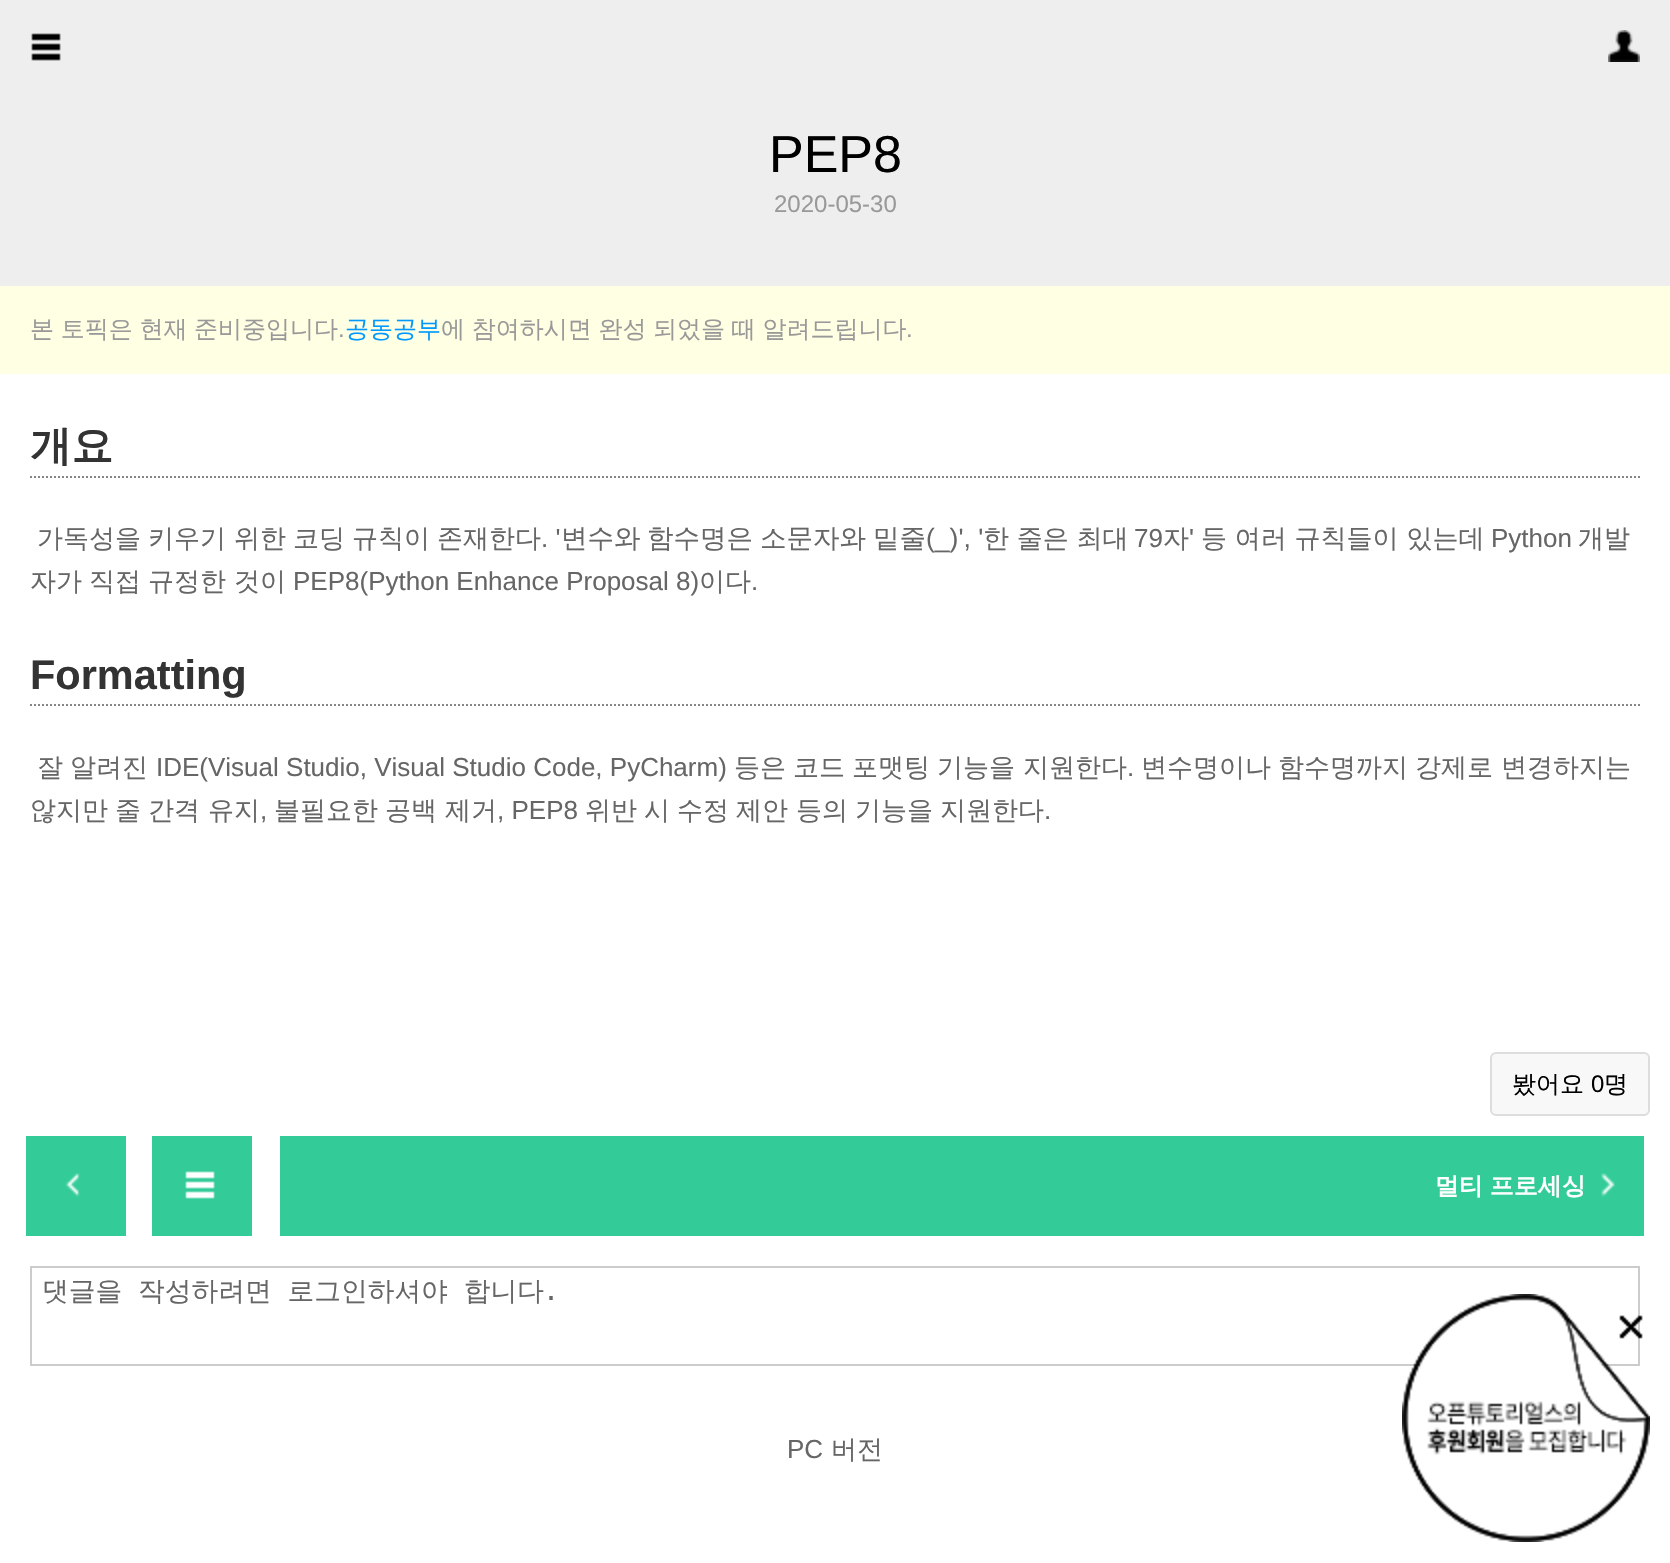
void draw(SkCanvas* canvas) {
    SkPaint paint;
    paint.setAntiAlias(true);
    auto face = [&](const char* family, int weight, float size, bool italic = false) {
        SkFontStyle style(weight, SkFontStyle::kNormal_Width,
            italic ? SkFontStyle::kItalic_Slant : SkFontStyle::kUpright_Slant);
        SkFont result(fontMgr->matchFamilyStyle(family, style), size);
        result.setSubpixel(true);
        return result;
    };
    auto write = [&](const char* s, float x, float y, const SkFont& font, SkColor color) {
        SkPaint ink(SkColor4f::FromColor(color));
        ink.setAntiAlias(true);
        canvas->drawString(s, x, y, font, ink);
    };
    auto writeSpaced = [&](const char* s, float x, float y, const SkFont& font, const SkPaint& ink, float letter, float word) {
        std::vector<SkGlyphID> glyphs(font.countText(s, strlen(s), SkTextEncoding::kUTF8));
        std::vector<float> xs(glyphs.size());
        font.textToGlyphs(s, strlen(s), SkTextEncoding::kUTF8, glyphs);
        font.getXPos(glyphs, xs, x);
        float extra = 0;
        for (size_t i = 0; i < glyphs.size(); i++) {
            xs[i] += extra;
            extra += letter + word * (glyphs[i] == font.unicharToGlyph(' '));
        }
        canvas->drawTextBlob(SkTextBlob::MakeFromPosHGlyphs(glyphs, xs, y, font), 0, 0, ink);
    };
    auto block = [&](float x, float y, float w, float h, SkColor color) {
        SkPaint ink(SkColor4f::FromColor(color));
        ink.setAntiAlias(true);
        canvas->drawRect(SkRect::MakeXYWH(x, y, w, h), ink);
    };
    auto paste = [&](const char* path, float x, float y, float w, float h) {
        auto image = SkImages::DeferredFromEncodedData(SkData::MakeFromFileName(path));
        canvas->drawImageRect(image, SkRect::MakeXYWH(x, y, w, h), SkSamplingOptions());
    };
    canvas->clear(SK_ColorWHITE);
    block(0, 0, 1670, 286, SkColorSetRGB(238, 238, 238));
    paste("pic1.png", 31, 33, 30, 28);
    paste("pic2.png", 1608, 30, 32, 32);
    auto kFont1 = face("Liberation Sans", 400, 52);
    write("PEP8", 769, 172, kFont1, SK_ColorBLACK);
    auto kFont2 = face("Liberation Sans", 400, 24);
    write("2020-05-30", 774, 212, kFont2, SkColorSetRGB(153, 153, 153));
    block(0, 286, 1670, 88, SkColorSetRGB(255, 255, 227));
    auto kFont3 = face("WenQuanYi Zen Hei", 500, 24);
    paint.setColor(SkColorSetRGB(153, 153, 153));
    writeSpaced("본 토픽은 현재 준비중입니다", 30, 337, kFont3, paint, 0, -0.5f);
    write(".", 338, 337, kFont2, SkColorSetRGB(153, 153, 153));
    write("공동공부", 345, 337, kFont3, SkColorSetRGB(0, 153, 255));
    writeSpaced("에 참여하시면 완성 되었을 때 알려드립니다", 441, 337, kFont3, paint, 0, -0.5f);
    write(".", 906, 337, kFont2, SkColorSetRGB(153, 153, 153));
    paint.setStyle(SkPaint::kStroke_Style);
    paint.setStrokeWidth(2);
    paint.setColor(SkColorSetRGB(133, 133, 133));
    paint.setPathEffect(SkDashPathEffect::Make({{2, 2}}, 0));
    canvas->drawPath(SkPathBuilder().moveTo(30, 477).lineTo(1640, 477).detach(), paint);
    paint.setPathEffect(nullptr);
    auto kFont4 = face("WenQuanYi Zen Hei", 700, 41.5f);
    write("개요", 30, 460, kFont4, SkColorSetRGB(51, 51, 51));
    auto kFont5 = face("WenQuanYi Zen Hei", 500, 26);
    write("가독성을", 37, 547, kFont5, SkColorSetRGB(102, 102, 102));
    write("키우기", 148, 547, kFont5, SkColorSetRGB(102, 102, 102));
    write("위한", 234, 547, kFont5, SkColorSetRGB(102, 102, 102));
    write("코딩", 293, 547, kFont5, SkColorSetRGB(102, 102, 102));
    write("규칙이", 352, 547, kFont5, SkColorSetRGB(102, 102, 102));
    write("존재한다", 437, 547, kFont5, SkColorSetRGB(102, 102, 102));
    auto kFont6 = face("Liberation Sans", 400, 26);
    write(". '", 541, 547, kFont6, SkColorSetRGB(102, 102, 102));
    auto kFont7 = face("WenQuanYi Zen Hei", 500, 26.5f);
    write("변수와", 561, 547, kFont7, SkColorSetRGB(102, 102, 102));
    write("함수명은", 647, 547, kFont7, SkColorSetRGB(102, 102, 102));
    write("소문자와", 760, 547, kFont7, SkColorSetRGB(102, 102, 102));
    write("밑줄", 873, 547, kFont7, SkColorSetRGB(102, 102, 102));
    auto kFont8 = face("Liberation Sans", 400, 26.5f);
    write("(_)', '", 926, 547, kFont8, SkColorSetRGB(102, 102, 102));
    write("한 줄은 최대", 983, 547, kFont5, SkColorSetRGB(102, 102, 102));
    write("79", 1134, 547, kFont6, SkColorSetRGB(102, 102, 102));
    write("자", 1163, 547, kFont5, SkColorSetRGB(102, 102, 102));
    write("'", 1189, 547, kFont6, SkColorSetRGB(102, 102, 102));
    write("등 여러 규칙들이 있는데", 1201, 547, kFont5, SkColorSetRGB(102, 102, 102));
    write("Python", 1491, 547, kFont6, SkColorSetRGB(102, 102, 102));
    write("개발", 1578, 547, kFont5, SkColorSetRGB(102, 102, 102));
    write("자가", 30, 590, kFont5, SkColorSetRGB(102, 102, 102));
    write("직접", 89, 590, kFont5, SkColorSetRGB(102, 102, 102));
    write("규정한", 148, 590, kFont5, SkColorSetRGB(102, 102, 102));
    write("것이", 234, 590, kFont5, SkColorSetRGB(102, 102, 102));
    write("PEP8(Python Enhance Proposal 8)", 293, 590, kFont6, SkColorSetRGB(102, 102, 102));
    write("이다", 699, 590, kFont5, SkColorSetRGB(102, 102, 102));
    write(".", 751, 590, kFont6, SkColorSetRGB(102, 102, 102));
    paint.setPathEffect(SkDashPathEffect::Make({{2, 2}}, 0));
    canvas->drawPath(SkPathBuilder().moveTo(30, 705).lineTo(1640, 705).detach(), paint);
    paint.setPathEffect(nullptr);
    auto kFont9 = face("Liberation Sans", 700, 41.5f);
    write("Formatting", 30, 689, kFont9, SkColorSetRGB(51, 51, 51));
    write("잘", 37, 776, kFont5, SkColorSetRGB(102, 102, 102));
    write("알려진", 70, 776, kFont5, SkColorSetRGB(102, 102, 102));
    write("IDE(Visual Studio, Visual Studio Code, PyCharm)", 156, 776, kFont6, SkColorSetRGB(102, 102, 102));
    write("등은", 734, 776, kFont5, SkColorSetRGB(102, 102, 102));
    write("코드", 793, 776, kFont5, SkColorSetRGB(102, 102, 102));
    write("포맷팅", 852, 776, kFont5, SkColorSetRGB(102, 102, 102));
    write("기능을", 937, 776, kFont5, SkColorSetRGB(102, 102, 102));
    write("지원한다", 1023, 776, kFont5, SkColorSetRGB(102, 102, 102));
    write(".", 1127, 776, kFont6, SkColorSetRGB(102, 102, 102));
    write("변수명이나", 1141, 776, kFont5, SkColorSetRGB(102, 102, 102));
    write("함수명까지", 1278, 776, kFont5, SkColorSetRGB(102, 102, 102));
    write("강제로", 1415, 776, kFont5, SkColorSetRGB(102, 102, 102));
    write("변경하지는", 1501, 776, kFont5, SkColorSetRGB(102, 102, 102));
    write("않지만", 30, 819, kFont5, SkColorSetRGB(102, 102, 102));
    write("줄", 115, 819, kFont5, SkColorSetRGB(102, 102, 102));
    write("간격", 148, 819, kFont5, SkColorSetRGB(102, 102, 102));
    write("유지", 208, 819, kFont5, SkColorSetRGB(102, 102, 102));
    write(",", 260, 819, kFont6, SkColorSetRGB(102, 102, 102));
    write("불필요한", 274, 819, kFont5, SkColorSetRGB(102, 102, 102));
    write("공백", 385, 819, kFont5, SkColorSetRGB(102, 102, 102));
    write("제거", 445, 819, kFont5, SkColorSetRGB(102, 102, 102));
    write(", PEP8", 497, 819, kFont6, SkColorSetRGB(102, 102, 102));
    write("위반", 585, 819, kFont5, SkColorSetRGB(102, 102, 102));
    write("시", 644, 819, kFont5, SkColorSetRGB(102, 102, 102));
    write("수정", 677, 819, kFont5, SkColorSetRGB(102, 102, 102));
    write("제안", 736, 819, kFont5, SkColorSetRGB(102, 102, 102));
    write("등의", 796, 819, kFont5, SkColorSetRGB(102, 102, 102));
    write("기능을", 855, 819, kFont5, SkColorSetRGB(102, 102, 102));
    write("지원한다", 940, 819, kFont5, SkColorSetRGB(102, 102, 102));
    write(".", 1044, 819, kFont6, SkColorSetRGB(102, 102, 102));
    paint.setStyle(SkPaint::kFill_Style);
    paint.setColor(SkColorSetRGB(248, 248, 248));
    canvas->drawRoundRect(SkRect::MakeXYWH(1491, 1053, 158, 62), 5, 5, paint);
    paint.setStyle(SkPaint::kStroke_Style);
    paint.setColor(SkColorSetRGB(221, 221, 221));
    canvas->drawRoundRect(SkRect::MakeXYWH(1491, 1053, 158, 62), 5, 5, paint);
    write("봤어요", 1512, 1092, kFont3, SK_ColorBLACK);
    write("0", 1591, 1092, kFont2, SK_ColorBLACK);
    write("명", 1604, 1092, kFont3, SK_ColorBLACK);
    block(26, 1136, 100, 100, SkColorSetRGB(51, 204, 153));
    paste("pic3.png", 65, 1173, 15, 24);
    block(152, 1136, 100, 100, SkColorSetRGB(51, 204, 153));
    paste("pic4.png", 185, 1171, 30, 28);
    block(280, 1136, 1364, 100, SkColorSetRGB(51, 204, 153));
    auto kFont10 = face("WenQuanYi Zen Hei", 700, 24);
    paint.setStyle(SkPaint::kFill_Style);
    paint.setColor(SK_ColorWHITE);
    writeSpaced("멀티 프로세싱", 1435, 1194, kFont10, paint, 0, -0.5f);
    paste("pic5.png", 1601, 1173, 14, 24);
    paint.setStyle(SkPaint::kStroke_Style);
    paint.setColor(SkColorSetRGB(204, 204, 204));
    canvas->drawRect(SkRect::MakeXYWH(31, 1267, 1608, 98), paint);
    auto kFont11 = face("WenQuanYi Zen Hei", 500, 26.7f);
    paint.setStyle(SkPaint::kFill_Style);
    paint.setColor(SkColorSetRGB(102, 102, 102));
    writeSpaced("댓글을 작성하려면 로그인하셔야 합니다", 42, 1300, kFont11, paint, 0, 8);
    auto kFont12 = face("DejaVu Sans Mono", 400, 26.7f);
    write(".", 543, 1300, kFont12, SkColorSetRGB(102, 102, 102));
    write("PC", 787, 1458, kFont6, SkColorSetRGB(102, 102, 102));
    write("버전", 831, 1458, kFont5, SkColorSetRGB(102, 102, 102));
    paste("pic6.png", 1402, 1294, 248, 248);
    paste("pic7.png", 1619, 1315, 24, 24);
}
